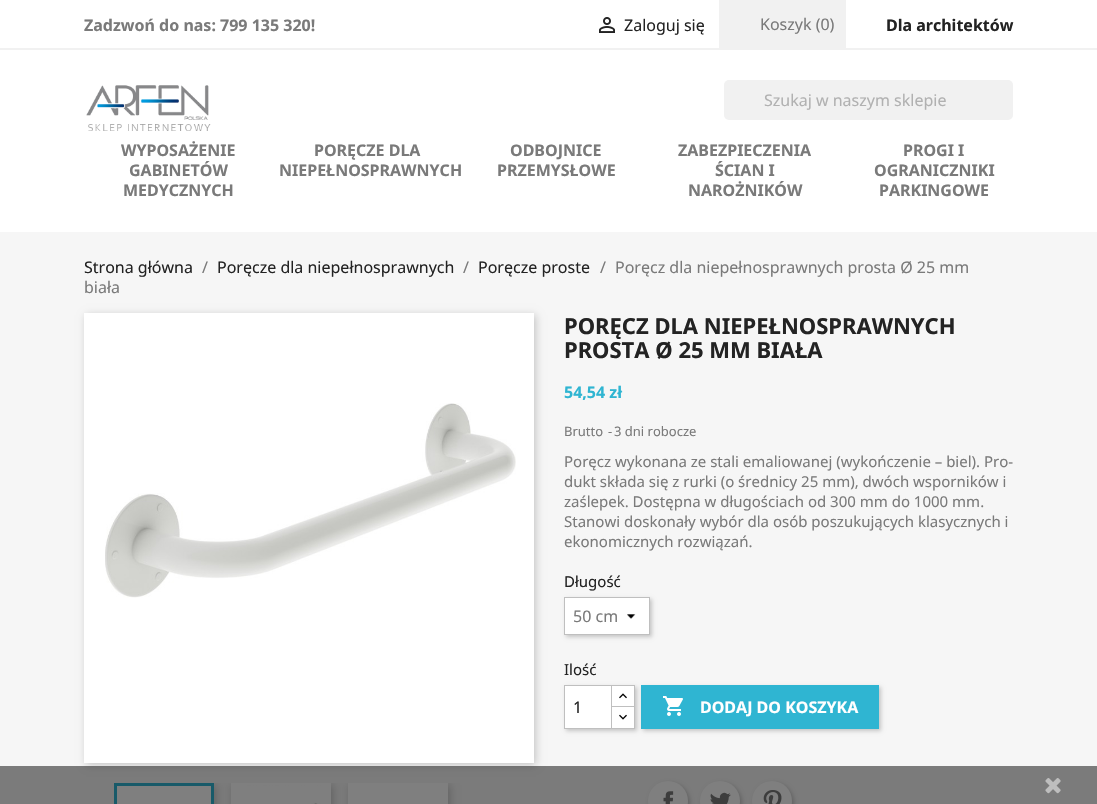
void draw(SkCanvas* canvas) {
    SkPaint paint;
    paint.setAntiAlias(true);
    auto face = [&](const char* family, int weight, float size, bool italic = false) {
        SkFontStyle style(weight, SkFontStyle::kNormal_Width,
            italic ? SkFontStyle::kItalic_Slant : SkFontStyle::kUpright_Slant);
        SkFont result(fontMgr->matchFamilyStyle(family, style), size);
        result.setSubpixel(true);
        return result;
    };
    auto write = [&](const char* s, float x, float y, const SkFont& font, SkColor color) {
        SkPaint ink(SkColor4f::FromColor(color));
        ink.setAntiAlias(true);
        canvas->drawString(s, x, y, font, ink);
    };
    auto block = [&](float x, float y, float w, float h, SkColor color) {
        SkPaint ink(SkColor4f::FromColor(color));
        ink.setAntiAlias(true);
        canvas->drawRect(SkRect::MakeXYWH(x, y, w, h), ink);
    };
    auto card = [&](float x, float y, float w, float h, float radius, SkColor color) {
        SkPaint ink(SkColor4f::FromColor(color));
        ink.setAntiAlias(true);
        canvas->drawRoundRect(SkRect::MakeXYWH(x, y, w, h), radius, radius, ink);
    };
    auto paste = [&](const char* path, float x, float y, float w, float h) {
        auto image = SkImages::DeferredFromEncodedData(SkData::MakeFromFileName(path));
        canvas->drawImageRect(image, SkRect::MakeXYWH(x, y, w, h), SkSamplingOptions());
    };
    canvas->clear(SK_ColorWHITE);
    block(0, 48, 1097, 2, SkColorSetRGB(241, 241, 241));
    auto kFont1 = face("Noto Sans", 700, 16);
    write("Zadzwoń do nas: 799 135 320!", 84, 31, kFont1, SkColorSetRGB(122, 122, 122));
    paste("pic1.png", 599, 17, 16, 16);
    auto kFont2 = face("Noto Sans", 400, 16);
    write("Zaloguj się", 624, 31, kFont2, SkColorSetRGB(35, 35, 35));
    block(719, 0, 127, 48, SkColorSetRGB(241, 241, 241));
    write("Koszyk (0)", 760, 30, kFont2, SkColorSetRGB(122, 122, 122));
    write("Dla architektów", 886, 31, kFont1, SkColorSetRGB(35, 35, 35));
    paste("pic2.png", 86, 85, 125, 46);
    card(724, 80, 289, 40, 5, SkColorSetRGB(241, 241, 241));
    write("Szukaj w naszym sklepie", 764, 106, kFont2, SkColorSetRGB(177, 177, 177));
    write("WYPOSAŻENIE", 121, 156, kFont1, SkColorSetRGB(122, 122, 122));
    write("GABINETÓW", 129, 176, kFont1, SkColorSetRGB(122, 122, 122));
    write("MEDYCZNYCH", 123, 196, kFont1, SkColorSetRGB(122, 122, 122));
    write("PORĘCZE DLA", 314, 156, kFont1, SkColorSetRGB(122, 122, 122));
    write("NIEPEŁNOSPRAWNYCH", 279, 176, kFont1, SkColorSetRGB(122, 122, 122));
    write("ODBOJNICE", 510, 156, kFont1, SkColorSetRGB(122, 122, 122));
    write("PRZEMYSŁOWE", 497, 176, kFont1, SkColorSetRGB(122, 122, 122));
    write("ZABEZPIECZENIA", 678, 156, kFont1, SkColorSetRGB(122, 122, 122));
    write("ŚCIAN I", 715, 176, kFont1, SkColorSetRGB(122, 122, 122));
    write("NAROŻNIKÓW", 688, 196, kFont1, SkColorSetRGB(122, 122, 122));
    write("PROGI I", 903, 156, kFont1, SkColorSetRGB(122, 122, 122));
    write("OGRANICZNIKI", 874, 176, kFont1, SkColorSetRGB(122, 122, 122));
    write("PARKINGOWE", 879, 196, kFont1, SkColorSetRGB(122, 122, 122));
    block(0, 232, 1097, 572, SkColorSetRGB(246, 246, 246));
    write("Strona główna", 84, 273, kFont2, SkColorSetRGB(35, 35, 35));
    write("/", 202, 273, kFont2, SkColorSetRGB(122, 122, 122));
    write("Poręcze dla niepełnosprawnych", 217, 273, kFont2, SkColorSetRGB(35, 35, 35));
    write("/", 463, 273, kFont2, SkColorSetRGB(122, 122, 122));
    write("Poręcze proste", 478, 273, kFont2, SkColorSetRGB(35, 35, 35));
    write("/", 600, 273, kFont2, SkColorSetRGB(122, 122, 122));
    write("Poręcz dla niepełnosprawnych prosta Ø 25 mm", 615, 273, kFont2, SkColorSetRGB(122, 122, 122));
    write("biała", 84, 293, kFont2, SkColorSetRGB(122, 122, 122));
    paint.setColor(SkColorSetARGB(51, 0, 0, 0));
    paint.setMaskFilter(SkMaskFilter::MakeBlur(kNormal_SkBlurStyle, 4));
    canvas->drawRect(SkRect::MakeXYWH(86, 315, 450, 450), paint);
    paint.setMaskFilter(nullptr);
    block(84, 313, 450, 450, SK_ColorWHITE);
    paste("pic3.png", 105, 403, 411, 195);
    canvas->save();
    canvas->clipRect(SkRect::MakeXYWH(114, 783, 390, 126));
    paint.setMaskFilter(SkMaskFilter::MakeBlur(kNormal_SkBlurStyle, 4));
    canvas->drawRect(SkRect::MakeXYWH(116, 785, 100, 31), paint);
    paint.setMaskFilter(nullptr);
    paint.setMaskFilter(SkMaskFilter::MakeBlur(kNormal_SkBlurStyle, 4));
    canvas->drawRect(SkRect::MakeXYWH(233, 785, 100, 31), paint);
    paint.setMaskFilter(nullptr);
    paint.setMaskFilter(SkMaskFilter::MakeBlur(kNormal_SkBlurStyle, 4));
    canvas->drawRect(SkRect::MakeXYWH(350, 785, 100, 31), paint);
    paint.setMaskFilter(nullptr);
    canvas->restore();
    paint.setStyle(SkPaint::kStroke_Style);
    paint.setStrokeWidth(3);
    paint.setColor(SkColorSetRGB(47, 181, 210));
    canvas->drawRect(SkRect::MakeXYWH(115.5f, 784.5f, 97, 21), paint);
    paste("pic4.png", 231, 783, 100, 21);
    block(348, 783, 100, 21, SK_ColorWHITE);
    block(117, 786, 94, 18, SkColorSetRGB(254, 254, 254));
    auto kFont3 = face("Noto Sans", 700, 22);
    write("PORĘCZ DLA NIEPEŁNOSPRAWNYCH", 564, 334, kFont3, SkColorSetRGB(35, 35, 35));
    write("PROSTA Ø 25 MM BIAŁA", 564, 358, kFont3, SkColorSetRGB(35, 35, 35));
    write("54,54 zł", 564, 398, kFont1, SkColorSetRGB(47, 181, 210));
    auto kFont4 = face("Noto Sans", 400, 13);
    write("Brutto", 564, 436, kFont4, SkColorSetRGB(122, 122, 122));
    write("-", 608, 436, kFont4, SkColorSetRGB(122, 122, 122));
    write("3 dni robocze", 614, 436, kFont4, SkColorSetRGB(122, 122, 122));
    auto kFont5 = face("Noto Sans", 400, 15);
    write("Poręcz wykonana ze stali emaliowanej (wykończenie – biel). Pro-", 564, 467, kFont5, SkColorSetRGB(122, 122, 122));
    write("dukt składa się z rurki (o średnicy 25 mm), dwóch wsporników i", 564, 487, kFont5, SkColorSetRGB(122, 122, 122));
    write("zaślepek. Dostępna w długościach od 300 mm do 1000 mm.", 564, 507, kFont5, SkColorSetRGB(122, 122, 122));
    write("Stanowi doskonały wybór dla osób poszukujących klasycznych i", 564, 527, kFont5, SkColorSetRGB(122, 122, 122));
    write("ekonomicznych rozwiązań.", 564, 547, kFont5, SkColorSetRGB(122, 122, 122));
    write("Długość", 564, 587, kFont5, SkColorSetRGB(35, 35, 35));
    paint.setStyle(SkPaint::kFill_Style);
    paint.setColor(SkColorSetARGB(51, 0, 0, 0));
    paint.setMaskFilter(SkMaskFilter::MakeBlur(kNormal_SkBlurStyle, 2));
    canvas->drawRect(SkRect::MakeXYWH(566, 599, 86, 38), paint);
    paint.setMaskFilter(nullptr);
    block(565, 598, 84, 36, SK_ColorWHITE);
    paste("pic5.png", 627, 614, 9, 5);
    paint.setStyle(SkPaint::kStroke_Style);
    paint.setStrokeWidth(1);
    paint.setColor(SkColorSetRGB(191, 191, 191));
    canvas->drawRect(SkRect::MakeXYWH(564.5f, 597.5f, 85, 37), paint);
    write("50 cm", 573, 622, kFont2, SkColorSetRGB(122, 122, 122));
    write("Ilość", 564, 675, kFont5, SkColorSetRGB(35, 35, 35));
    paint.setStyle(SkPaint::kFill_Style);
    paint.setColor(SkColorSetARGB(51, 0, 0, 0));
    paint.setMaskFilter(SkMaskFilter::MakeBlur(kNormal_SkBlurStyle, 2));
    canvas->drawRect(SkRect::MakeXYWH(643, 687, 238, 44), paint);
    paint.setMaskFilter(nullptr);
    block(641, 685, 238, 44, SkColorSetRGB(47, 181, 210));
    paint.setMaskFilter(SkMaskFilter::MakeBlur(kNormal_SkBlurStyle, 2));
    canvas->drawRect(SkRect::MakeXYWH(566, 687, 71, 44), paint);
    paint.setMaskFilter(nullptr);
    block(612, 686, 22, 20, SK_ColorWHITE);
    paint.setStyle(SkPaint::kStroke_Style);
    paint.setColor(SkColorSetRGB(191, 191, 191));
    canvas->drawRect(SkRect::MakeXYWH(611.5f, 685.5f, 23, 22), paint);
    paint.setStyle(SkPaint::kFill_Style);
    paint.setColor(SK_ColorWHITE);
    canvas->drawRect(SkRect::MakeXYWH(611.5f, 706.5f, 23, 22), paint);
    paint.setStyle(SkPaint::kStroke_Style);
    paint.setColor(SkColorSetRGB(191, 191, 191));
    canvas->drawRect(SkRect::MakeXYWH(611.5f, 706.5f, 23, 22), paint);
    paint.setStyle(SkPaint::kFill_Style);
    paint.setColor(SK_ColorWHITE);
    canvas->drawRect(SkRect::MakeXYWH(564.5f, 685.5f, 47, 43), paint);
    paint.setStyle(SkPaint::kStroke_Style);
    paint.setColor(SkColorSetRGB(191, 191, 191));
    canvas->drawRect(SkRect::MakeXYWH(564.5f, 685.5f, 47, 43), paint);
    write("1", 573, 713, kFont2, SkColorSetRGB(35, 35, 35));
    paste("pic6.png", 619, 693, 8, 6);
    paste("pic7.png", 619, 714, 8, 6);
    paste("pic8.png", 663, 696, 20, 20);
    write("DODAJ DO KOSZYKA", 700, 713, kFont1, SK_ColorWHITE);
    paint.setStyle(SkPaint::kFill_Style);
    paint.setColor(SkColorSetARGB(51, 0, 0, 0));
    paint.setMaskFilter(SkMaskFilter::MakeBlur(kNormal_SkBlurStyle, 2));
    canvas->drawRoundRect(SkRect::MakeXYWH(650, 783, 40, 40), 20, 20, paint);
    paint.setMaskFilter(nullptr);
    paint.setColor(SK_ColorWHITE);
    canvas->drawCircle(668, 801, 20, paint);
    paste("pic9.png", 663, 791, 11, 13);
    paint.setColor(SkColorSetARGB(51, 0, 0, 0));
    paint.setMaskFilter(SkMaskFilter::MakeBlur(kNormal_SkBlurStyle, 2));
    canvas->drawRoundRect(SkRect::MakeXYWH(702, 783, 40, 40), 20, 20, paint);
    paint.setMaskFilter(nullptr);
    paint.setColor(SK_ColorWHITE);
    canvas->drawCircle(720, 801, 20, paint);
    paste("pic10.png", 710, 792, 21, 12);
    paint.setColor(SkColorSetARGB(51, 0, 0, 0));
    paint.setMaskFilter(SkMaskFilter::MakeBlur(kNormal_SkBlurStyle, 2));
    canvas->drawRoundRect(SkRect::MakeXYWH(754, 783, 40, 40), 20, 20, paint);
    paint.setMaskFilter(nullptr);
    paint.setColor(SK_ColorWHITE);
    canvas->drawCircle(772, 801, 20, paint);
    paste("pic11.png", 763, 790, 19, 14);
    block(0, 766, 1097, 38, SkColorSetARGB(128, 0, 0, 0));
    paste("pic12.png", 1045, 778, 16, 16);
}
